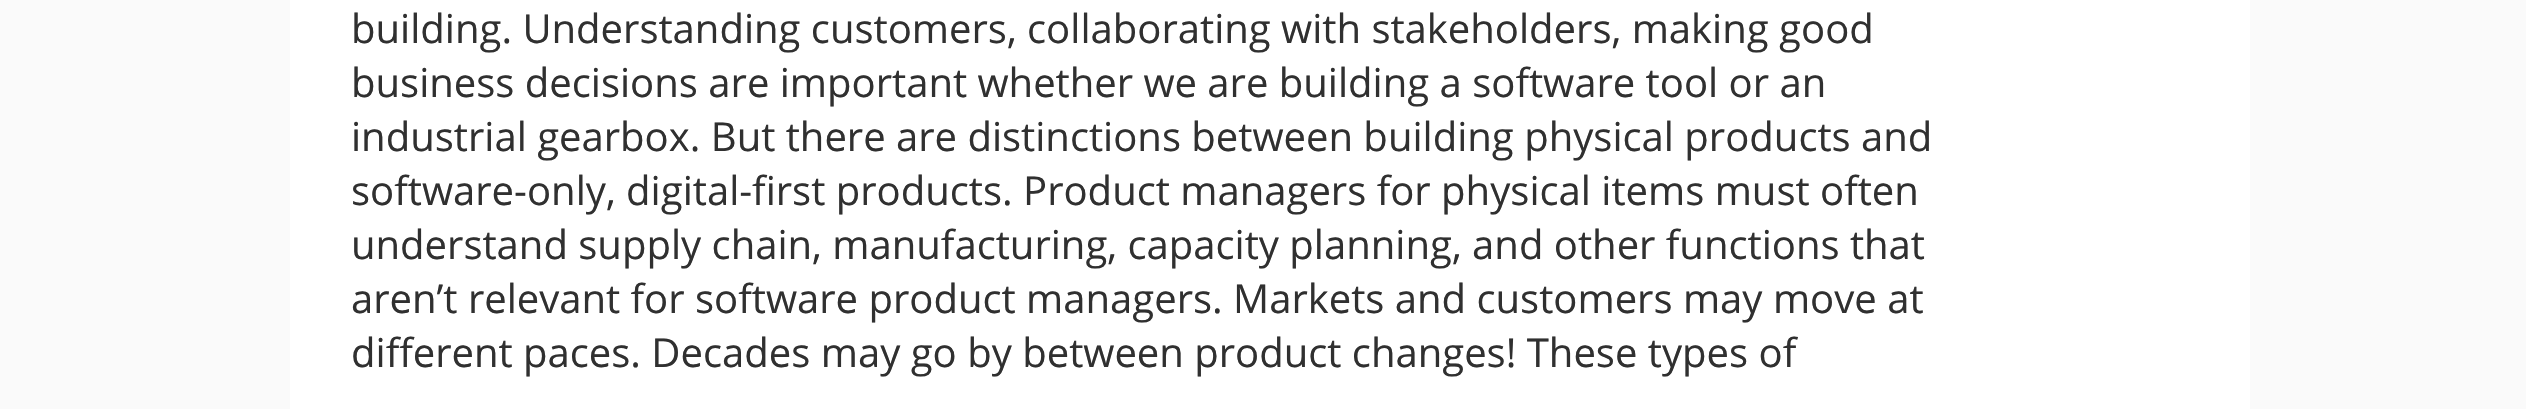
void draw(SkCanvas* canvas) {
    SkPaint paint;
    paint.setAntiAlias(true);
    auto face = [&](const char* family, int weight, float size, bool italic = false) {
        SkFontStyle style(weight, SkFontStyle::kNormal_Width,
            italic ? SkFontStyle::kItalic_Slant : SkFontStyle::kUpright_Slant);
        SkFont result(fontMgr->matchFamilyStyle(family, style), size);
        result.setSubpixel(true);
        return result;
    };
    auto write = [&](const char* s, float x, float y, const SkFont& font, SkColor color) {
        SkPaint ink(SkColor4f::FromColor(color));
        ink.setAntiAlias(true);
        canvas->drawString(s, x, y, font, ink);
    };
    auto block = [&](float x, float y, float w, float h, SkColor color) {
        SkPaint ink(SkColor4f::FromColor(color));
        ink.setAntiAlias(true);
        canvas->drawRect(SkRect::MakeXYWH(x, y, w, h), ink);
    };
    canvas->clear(SkColorSetRGB(250, 250, 250));
    block(290, 0, 1960, 409, SK_ColorWHITE);
    auto kFont1 = face("Open Sans", 400, 40);
    write("building. Understanding customers, collaborating with stakeholders, making good", 351, 43, kFont1, SkColorSetRGB(48, 48, 48));
    write("business decisions are important whether we are building a software tool or an", 351, 97, kFont1, SkColorSetRGB(48, 48, 48));
    write("industrial gearbox. But there are distinctions between building physical products and", 351, 151, kFont1, SkColorSetRGB(48, 48, 48));
    write("software-only, digital-first products. Product managers for physical items must often", 351, 205, kFont1, SkColorSetRGB(48, 48, 48));
    write("understand supply chain, manufacturing, capacity planning, and other functions that", 351, 259, kFont1, SkColorSetRGB(48, 48, 48));
    write("aren’t relevant for software product managers. Markets and customers may move at", 351, 313, kFont1, SkColorSetRGB(48, 48, 48));
    write("different paces. Decades may go by between product changes! These types of", 351, 367, kFont1, SkColorSetRGB(48, 48, 48));
}
